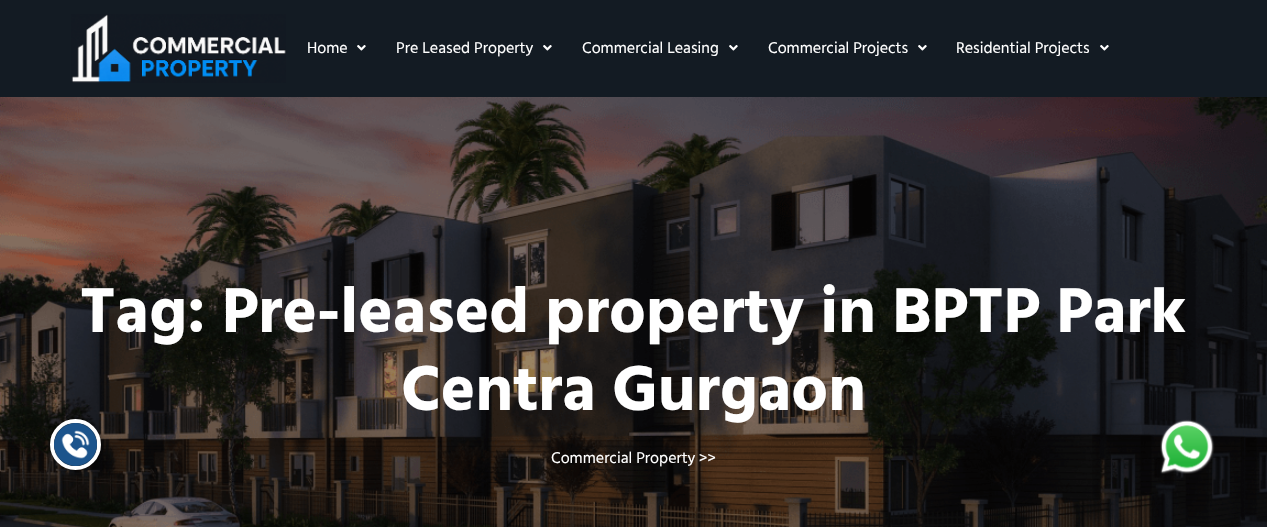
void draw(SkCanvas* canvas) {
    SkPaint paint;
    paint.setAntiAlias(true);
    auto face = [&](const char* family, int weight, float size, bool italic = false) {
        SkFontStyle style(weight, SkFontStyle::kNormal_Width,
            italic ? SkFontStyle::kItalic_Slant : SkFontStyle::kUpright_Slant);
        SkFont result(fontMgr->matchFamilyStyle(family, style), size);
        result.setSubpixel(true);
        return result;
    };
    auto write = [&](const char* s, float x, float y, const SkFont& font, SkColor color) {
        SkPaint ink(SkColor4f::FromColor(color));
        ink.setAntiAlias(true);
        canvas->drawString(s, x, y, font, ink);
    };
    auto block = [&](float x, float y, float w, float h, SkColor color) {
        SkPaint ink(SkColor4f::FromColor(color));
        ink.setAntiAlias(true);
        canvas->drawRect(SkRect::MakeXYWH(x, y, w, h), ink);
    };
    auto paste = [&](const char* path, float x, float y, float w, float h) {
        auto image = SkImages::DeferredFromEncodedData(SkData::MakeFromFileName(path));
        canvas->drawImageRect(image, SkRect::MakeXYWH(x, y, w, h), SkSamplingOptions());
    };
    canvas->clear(SK_ColorWHITE);
    block(0, 0, 1267, 97, SkColorSetRGB(19, 27, 35));
    paste("pic1.png", 71, 14, 215, 69);
    auto kFont1 = face("Hind Madurai", 400, 16);
    write("Home", 307, 53, kFont1, SK_ColorWHITE);
    paste("pic2.png", 357, 45, 9, 6);
    write("Pre Leased Property", 396, 53, kFont1, SK_ColorWHITE);
    paste("pic2.png", 543, 45, 9, 6);
    write("Commercial Leasing", 582, 53, kFont1, SK_ColorWHITE);
    paste("pic2.png", 729, 45, 9, 6);
    write("Commercial Projects", 768, 53, kFont1, SK_ColorWHITE);
    paste("pic2.png", 918, 45, 9, 6);
    write("Residential Projects", 956, 53, kFont1, SK_ColorWHITE);
    paste("pic2.png", 1100, 45, 9, 6);
    paste("pic3.png", 0, 97, 1267, 430);
    auto kFont2 = face("Hind Madurai", 700, 65);
    write("Tag: Pre-leased property in BPTP Park", 80, 332, kFont2, SK_ColorWHITE);
    write("Centra Gurgaon", 401, 410, kFont2, SK_ColorWHITE);
    write("Commercial Property", 551, 463, kFont1, SK_ColorWHITE);
    write(">>", 699, 463, kFont1, SK_ColorWHITE);
    paint.setColor(SkColorSetARGB(128, 0, 0, 0));
    paint.setMaskFilter(SkMaskFilter::MakeBlur(kNormal_SkBlurStyle, 2));
    canvas->drawRoundRect(SkRect::MakeXYWH(50, 419, 51, 51), 25.5f, 25.5f, paint);
    paint.setMaskFilter(nullptr);
    paint.setStyle(SkPaint::kStroke_Style);
    paint.setStrokeWidth(4);
    paint.setColor(SK_ColorWHITE);
    canvas->drawCircle(75.5f, 444.5f, 23.5f, paint);
    paste("pic4.png", 54, 423, 43, 43);
    paste("pic5.png", 1160, 419, 55, 55);
}
